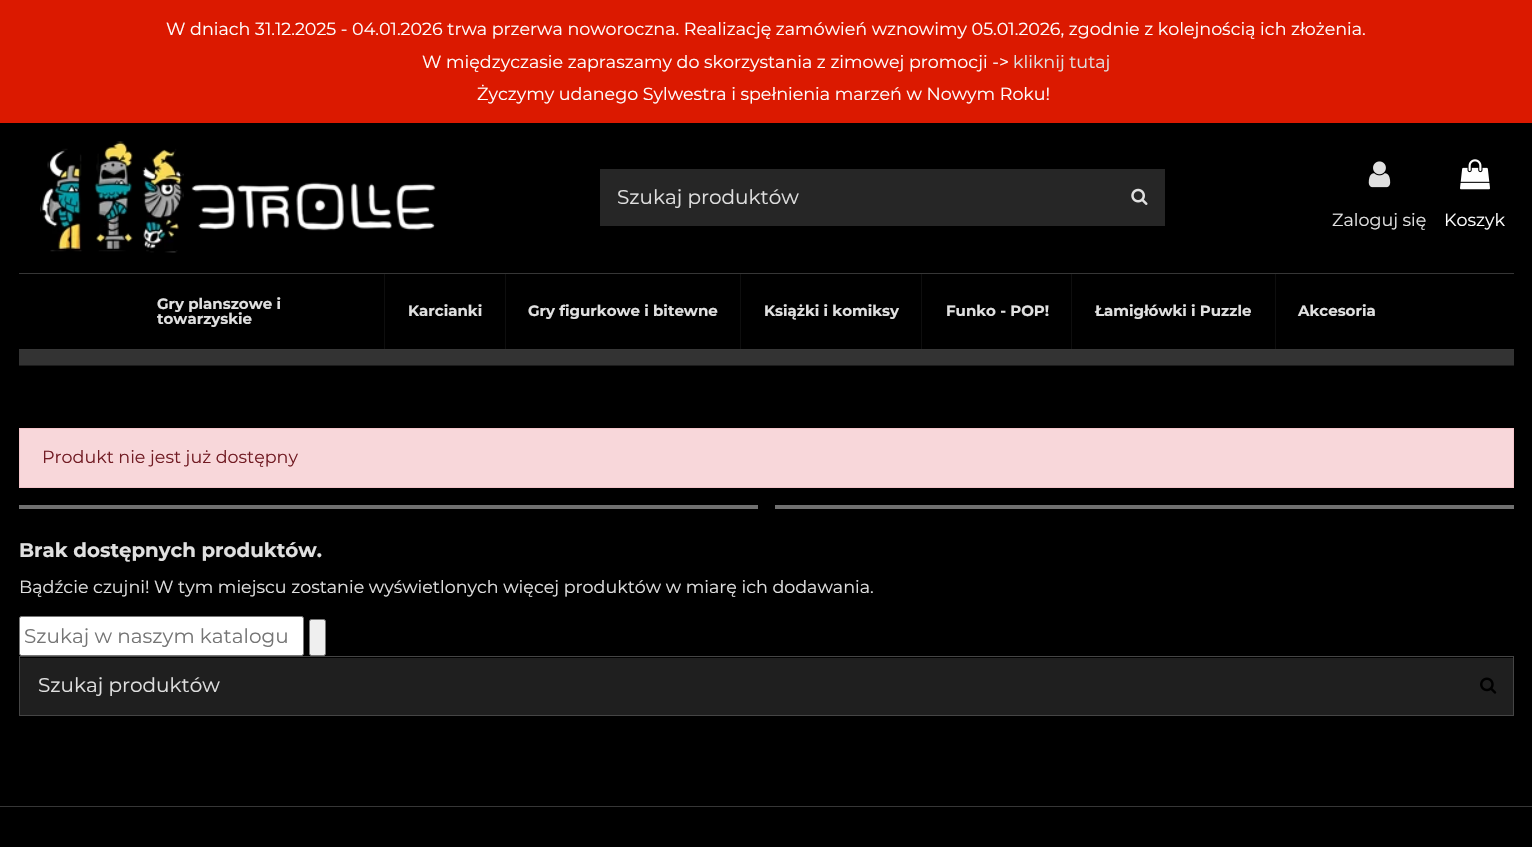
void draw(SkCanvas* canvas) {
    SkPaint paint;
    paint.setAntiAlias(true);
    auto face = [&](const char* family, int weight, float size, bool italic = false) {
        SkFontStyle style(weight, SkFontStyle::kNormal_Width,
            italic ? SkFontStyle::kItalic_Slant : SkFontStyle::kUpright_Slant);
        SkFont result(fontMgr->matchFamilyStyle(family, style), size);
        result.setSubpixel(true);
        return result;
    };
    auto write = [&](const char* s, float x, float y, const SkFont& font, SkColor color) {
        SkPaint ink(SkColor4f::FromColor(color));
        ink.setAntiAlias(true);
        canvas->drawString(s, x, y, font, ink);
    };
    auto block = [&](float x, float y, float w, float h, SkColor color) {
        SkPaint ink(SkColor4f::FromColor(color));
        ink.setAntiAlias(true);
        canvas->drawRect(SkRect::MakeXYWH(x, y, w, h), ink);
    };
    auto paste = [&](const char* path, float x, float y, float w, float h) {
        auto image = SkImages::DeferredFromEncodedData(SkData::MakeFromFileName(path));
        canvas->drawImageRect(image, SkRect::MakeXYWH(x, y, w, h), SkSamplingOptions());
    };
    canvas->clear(SK_ColorBLACK);
    block(0, 0, 1532, 123, SkColorSetRGB(219, 25, 0));
    auto kFont1 = face("Montserrat", 400, 17.5f);
    write("W dniach 31.12.2025 - 04.01.2026 trwa przerwa noworoczna. Realizację zamówień wznowimy 05.01.2026, zgodnie z kolejnością ich złożenia.", 166, 35, kFont1, SK_ColorWHITE);
    write("W międzyczasie zapraszamy do skorzystania z zimowej promocji ->", 422, 68, kFont1, SK_ColorWHITE);
    write("kliknij tutaj", 1013, 68, kFont1, SkColorSetRGB(224, 224, 224));
    write("Życzymy udanego Sylwestra i spełnienia marzeń w Nowym Roku!", 477, 100, kFont1, SK_ColorWHITE);
    paste("pic1.png", 40, 141, 396, 112);
    block(600, 169, 565, 57, SkColorSetRGB(38, 38, 38));
    auto kFont2 = face("Montserrat", 400, 20);
    write("Szukaj produktów", 617, 204, kFont2, SkColorSetRGB(224, 224, 224));
    paste("pic2.png", 1131, 188, 17, 17);
    paste("pic3.png", 1368, 161, 23, 27);
    write("Zaloguj się", 1332, 226, kFont1, SkColorSetRGB(224, 224, 224));
    paste("pic4.png", 1460, 159, 30, 31);
    write("Koszyk", 1444, 226, kFont1, SK_ColorWHITE);
    block(19, 273, 1495, 1, SkColorSetRGB(54, 54, 54));
    block(19, 349, 1495, 1, SkColorSetRGB(54, 54, 54));
    auto kFont3 = face("Montserrat", 700, 15);
    write("Gry planszowe i", 157, 309, kFont3, SkColorSetRGB(224, 224, 224));
    write("towarzyskie", 157, 324, kFont3, SkColorSetRGB(224, 224, 224));
    block(384, 274, 1, 75, SkColorSetRGB(14, 14, 14));
    write("Karcianki", 408, 316, kFont3, SkColorSetRGB(224, 224, 224));
    block(505, 274, 1, 75, SkColorSetRGB(14, 14, 14));
    write("Gry figurkowe i bitewne", 528, 316, kFont3, SkColorSetRGB(224, 224, 224));
    block(740, 274, 1, 75, SkColorSetRGB(14, 14, 14));
    write("Książki i komiksy", 764, 316, kFont3, SkColorSetRGB(224, 224, 224));
    block(921, 274, 1, 75, SkColorSetRGB(14, 14, 14));
    write("Funko - POP!", 946, 316, kFont3, SkColorSetRGB(224, 224, 224));
    block(1071, 274, 1, 75, SkColorSetRGB(14, 14, 14));
    write("Łamigłówki i Puzzle", 1095, 316, kFont3, SkColorSetRGB(224, 224, 224));
    block(1275, 274, 1, 75, SkColorSetRGB(14, 14, 14));
    write("Akcesoria", 1298, 316, kFont3, SkColorSetRGB(224, 224, 224));
    paint.setColor(SkColorSetRGB(27, 27, 27));
    canvas->drawPath(SkPathBuilder().moveTo(19, 365).lineTo(19, 366).lineTo(1514, 366).lineTo(1514, 351).lineTo(1514, 365).close().detach(), paint);
    block(19, 350, 1495, 15, SkColorSetRGB(51, 51, 51));
    paint.setColor(SkColorSetRGB(248, 215, 218));
    canvas->drawRect(SkRect::MakeXYWH(19.5f, 428.5f, 1494, 59), paint);
    paint.setStyle(SkPaint::kStroke_Style);
    paint.setStrokeWidth(1);
    paint.setColor(SkColorSetRGB(245, 198, 203));
    canvas->drawRect(SkRect::MakeXYWH(19.5f, 428.5f, 1494, 59), paint);
    write("Produkt nie jest już dostępny", 42, 463, kFont1, SkColorSetRGB(114, 28, 36));
    block(19, 505, 739, 4, SkColorSetRGB(112, 112, 112));
    block(775, 505, 739, 4, SkColorSetRGB(112, 112, 112));
    auto kFont4 = face("Montserrat", 700, 19.75f);
    write("Brak dostępnych produktów.", 19, 557, kFont4, SkColorSetRGB(224, 224, 224));
    write("Bądźcie czujni! W tym miejscu zostanie wyświetlonych więcej produktów w miarę ich dodawania.", 19, 593, kFont1, SkColorSetRGB(224, 224, 224));
    paint.setStyle(SkPaint::kFill_Style);
    paint.setColor(SK_ColorWHITE);
    canvas->drawRoundRect(SkRect::MakeXYWH(19.5f, 616.5f, 284, 39), 2, 2, paint);
    paint.setStyle(SkPaint::kStroke_Style);
    paint.setColor(SkColorSetRGB(118, 118, 118));
    canvas->drawRoundRect(SkRect::MakeXYWH(19.5f, 616.5f, 284, 39), 2, 2, paint);
    write("Szukaj w naszym katalogu", 24, 643, kFont2, SkColorSetRGB(117, 117, 117));
    paint.setStyle(SkPaint::kFill_Style);
    paint.setColor(SkColorSetRGB(239, 239, 239));
    canvas->drawRoundRect(SkRect::MakeXYWH(309.5f, 619.5f, 16, 36), 2, 2, paint);
    paint.setStyle(SkPaint::kStroke_Style);
    paint.setColor(SkColorSetRGB(118, 118, 118));
    canvas->drawRoundRect(SkRect::MakeXYWH(309.5f, 619.5f, 16, 36), 2, 2, paint);
    block(20, 658, 1493, 57, SkColorSetRGB(31, 31, 31));
    paint.setColor(SkColorSetRGB(69, 69, 69));
    canvas->drawRect(SkRect::MakeXYWH(19.5f, 656.5f, 1494, 59), paint);
    write("Szukaj produktów", 38, 692, kFont2, SkColorSetRGB(224, 224, 224));
    paste("pic5.png", 1480, 677, 17, 17);
    block(0, 806, 1532, 1, SkColorSetRGB(54, 54, 54));
}
